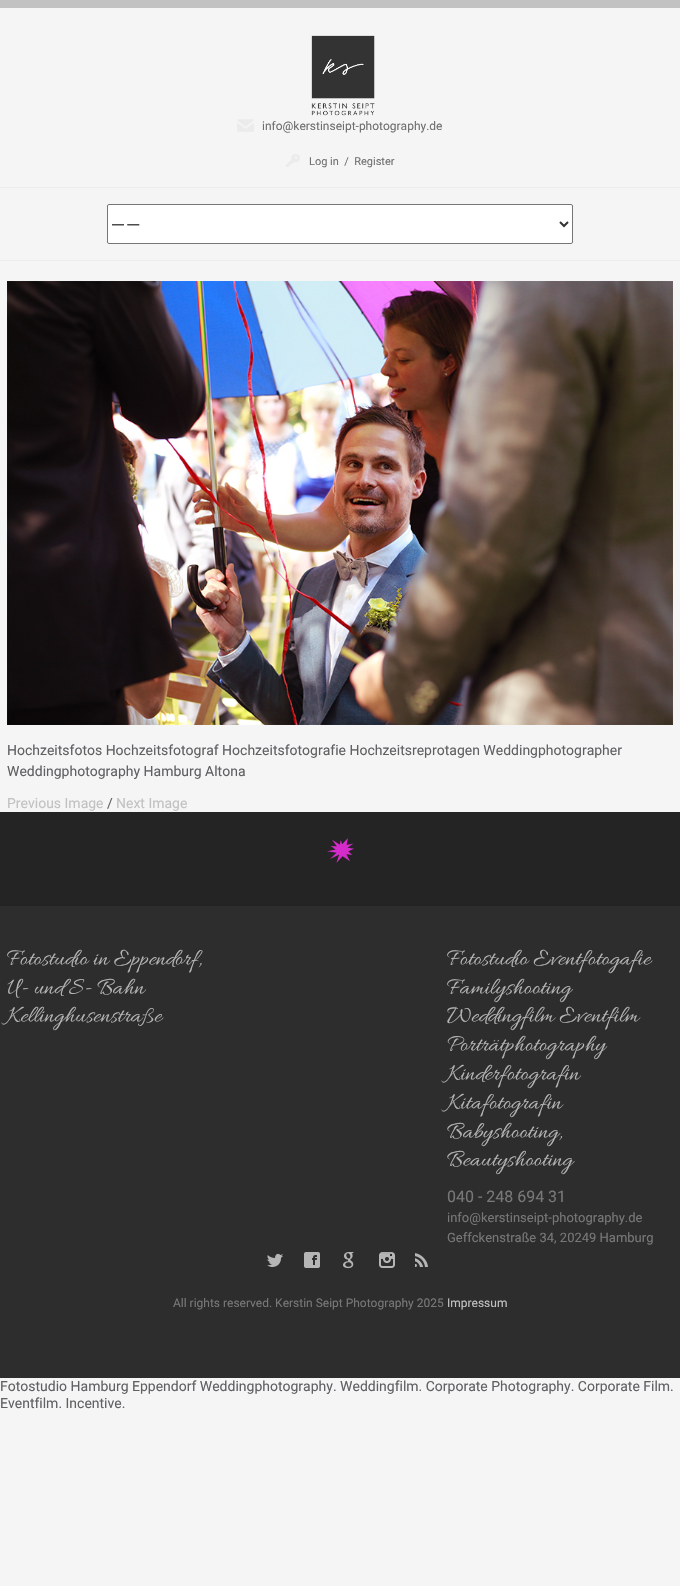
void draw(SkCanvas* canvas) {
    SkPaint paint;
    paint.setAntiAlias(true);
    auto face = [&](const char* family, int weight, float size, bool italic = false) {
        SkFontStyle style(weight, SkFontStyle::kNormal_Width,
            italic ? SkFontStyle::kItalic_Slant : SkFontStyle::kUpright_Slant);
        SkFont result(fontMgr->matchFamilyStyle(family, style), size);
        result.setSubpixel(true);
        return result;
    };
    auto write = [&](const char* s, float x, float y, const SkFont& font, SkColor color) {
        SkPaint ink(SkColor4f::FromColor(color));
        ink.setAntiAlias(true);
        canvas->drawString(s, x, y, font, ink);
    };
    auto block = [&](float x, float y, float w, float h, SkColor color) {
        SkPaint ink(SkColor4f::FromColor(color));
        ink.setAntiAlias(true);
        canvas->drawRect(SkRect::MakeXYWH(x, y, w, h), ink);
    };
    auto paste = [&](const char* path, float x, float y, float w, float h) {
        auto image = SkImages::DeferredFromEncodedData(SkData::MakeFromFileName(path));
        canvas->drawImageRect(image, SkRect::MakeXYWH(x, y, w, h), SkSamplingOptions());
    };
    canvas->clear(SkColorSetRGB(245, 245, 245));
    block(0, 0, 680, 8, SkColorSetRGB(194, 194, 194));
    paste("pic1.png", 311, 35, 64, 81);
    paste("pic2.png", 237, 119, 17, 13);
    auto kFont1 = face("Roboto", 400, 12);
    write("info@kerstinseipt-photography.de", 262, 130, kFont1, SkColorSetRGB(111, 111, 111));
    paste("pic3.png", 286, 154, 14, 13);
    auto kFont2 = face("Roboto", 400, 11);
    write("Log in  /  Register", 309, 165, kFont2, SkColorSetRGB(111, 111, 111));
    block(0, 187, 680, 1, SkColorSetRGB(236, 236, 236));
    block(0, 260, 680, 1, SkColorSetRGB(236, 236, 236));
    paint.setColor(SK_ColorWHITE);
    canvas->drawRoundRect(SkRect::MakeXYWH(107.5f, 204.5f, 465, 39), 1.5f, 1.5f, paint);
    paint.setStyle(SkPaint::kStroke_Style);
    paint.setStrokeWidth(1);
    paint.setColor(SkColorSetRGB(118, 118, 118));
    canvas->drawRoundRect(SkRect::MakeXYWH(107.5f, 204.5f, 465, 39), 1.5f, 1.5f, paint);
    paint.setStrokeWidth(2);
    paint.setColor(SkColorSetRGB(51, 51, 51));
    canvas->drawPath(SkPathBuilder().moveTo(560, 222).lineTo(564, 226).lineTo(568, 222).detach(), paint);
    auto kFont3 = face("Liberation Sans", 700, 12);
    write("— —", 112, 228, kFont3, SkColorSetRGB(51, 51, 51));
    paste("pic4.png", 7, 281, 666, 444);
    auto kFont4 = face("Roboto", 400, 14);
    write("Hochzeitsfotos Hochzeitsfotograf Hochzeitsfotografie Hochzeitsreprotagen Weddingphotographer", 7, 755, kFont4, SkColorSetRGB(95, 96, 98));
    write("Weddingphotography Hamburg Altona", 7, 776, kFont4, SkColorSetRGB(95, 96, 98));
    write("Previous Image", 7, 808, kFont4, SkColorSetRGB(194, 194, 194));
    write("/", 107, 808, kFont4, SkColorSetRGB(95, 96, 98));
    write("Next Image", 116, 808, kFont4, SkColorSetRGB(194, 194, 194));
    block(0, 812, 680, 94, SkColorSetRGB(36, 36, 36));
    paste("pic5.png", 327, 838, 27, 25);
    block(0, 906, 680, 472, SkColorSetRGB(45, 45, 45));
    auto kFont5 = face("Allura", 400, 24);
    write("Fotostudio in Eppendorf,", 7, 964, kFont5, SkColorSetRGB(181, 181, 181));
    write("U- und S- Bahn", 7, 993, kFont5, SkColorSetRGB(181, 181, 181));
    write("Kellinghusenstraße", 7, 1021, kFont5, SkColorSetRGB(181, 181, 181));
    write("Fotostudio Eventfotogafie", 447, 964, kFont5, SkColorSetRGB(181, 181, 181));
    write("Familyshooting", 447, 993, kFont5, SkColorSetRGB(181, 181, 181));
    write("Weddingfilm Eventfilm", 447, 1021, kFont5, SkColorSetRGB(181, 181, 181));
    write("Porträtphotography", 447, 1050, kFont5, SkColorSetRGB(181, 181, 181));
    write("Kinderfotografin", 447, 1079, kFont5, SkColorSetRGB(181, 181, 181));
    write("Kitafotografin", 447, 1108, kFont5, SkColorSetRGB(181, 181, 181));
    write("Babyshooting,", 447, 1137, kFont5, SkColorSetRGB(181, 181, 181));
    write("Beautyshooting", 447, 1165, kFont5, SkColorSetRGB(181, 181, 181));
    auto kFont6 = face("Roboto", 400, 16);
    write("040 - 248 694 31", 447, 1202, kFont6, SkColorSetRGB(120, 120, 120));
    auto kFont7 = face("Roboto", 400, 13);
    write("info@kerstinseipt-photography.de", 447, 1222, kFont7, SkColorSetRGB(120, 120, 120));
    write("Geffckenstraße 34, 20249 Hamburg", 447, 1242, kFont7, SkColorSetRGB(120, 120, 120));
    paste("pic6.png", 267, 1253, 16, 14);
    paste("pic7.png", 304, 1252, 16, 16);
    paste("pic8.png", 343, 1252, 11, 17);
    paste("pic9.png", 379, 1252, 16, 16);
    paste("pic10.png", 415, 1253, 13, 14);
    write("All rights reserved. Kerstin Seipt Photography 2025", 173, 1307, kFont1, SkColorSetRGB(120, 120, 120));
    write("Impressum", 447, 1307, kFont1, SkColorSetRGB(194, 194, 194));
    write("Fotostudio Hamburg Eppendorf Weddingphotography. Weddingfilm. Corporate Photography. Corporate Film.", 0, 1391, kFont4, SkColorSetRGB(95, 96, 98));
    write("Eventfilm. Incentive.", 0, 1408, kFont4, SkColorSetRGB(95, 96, 98));
}
